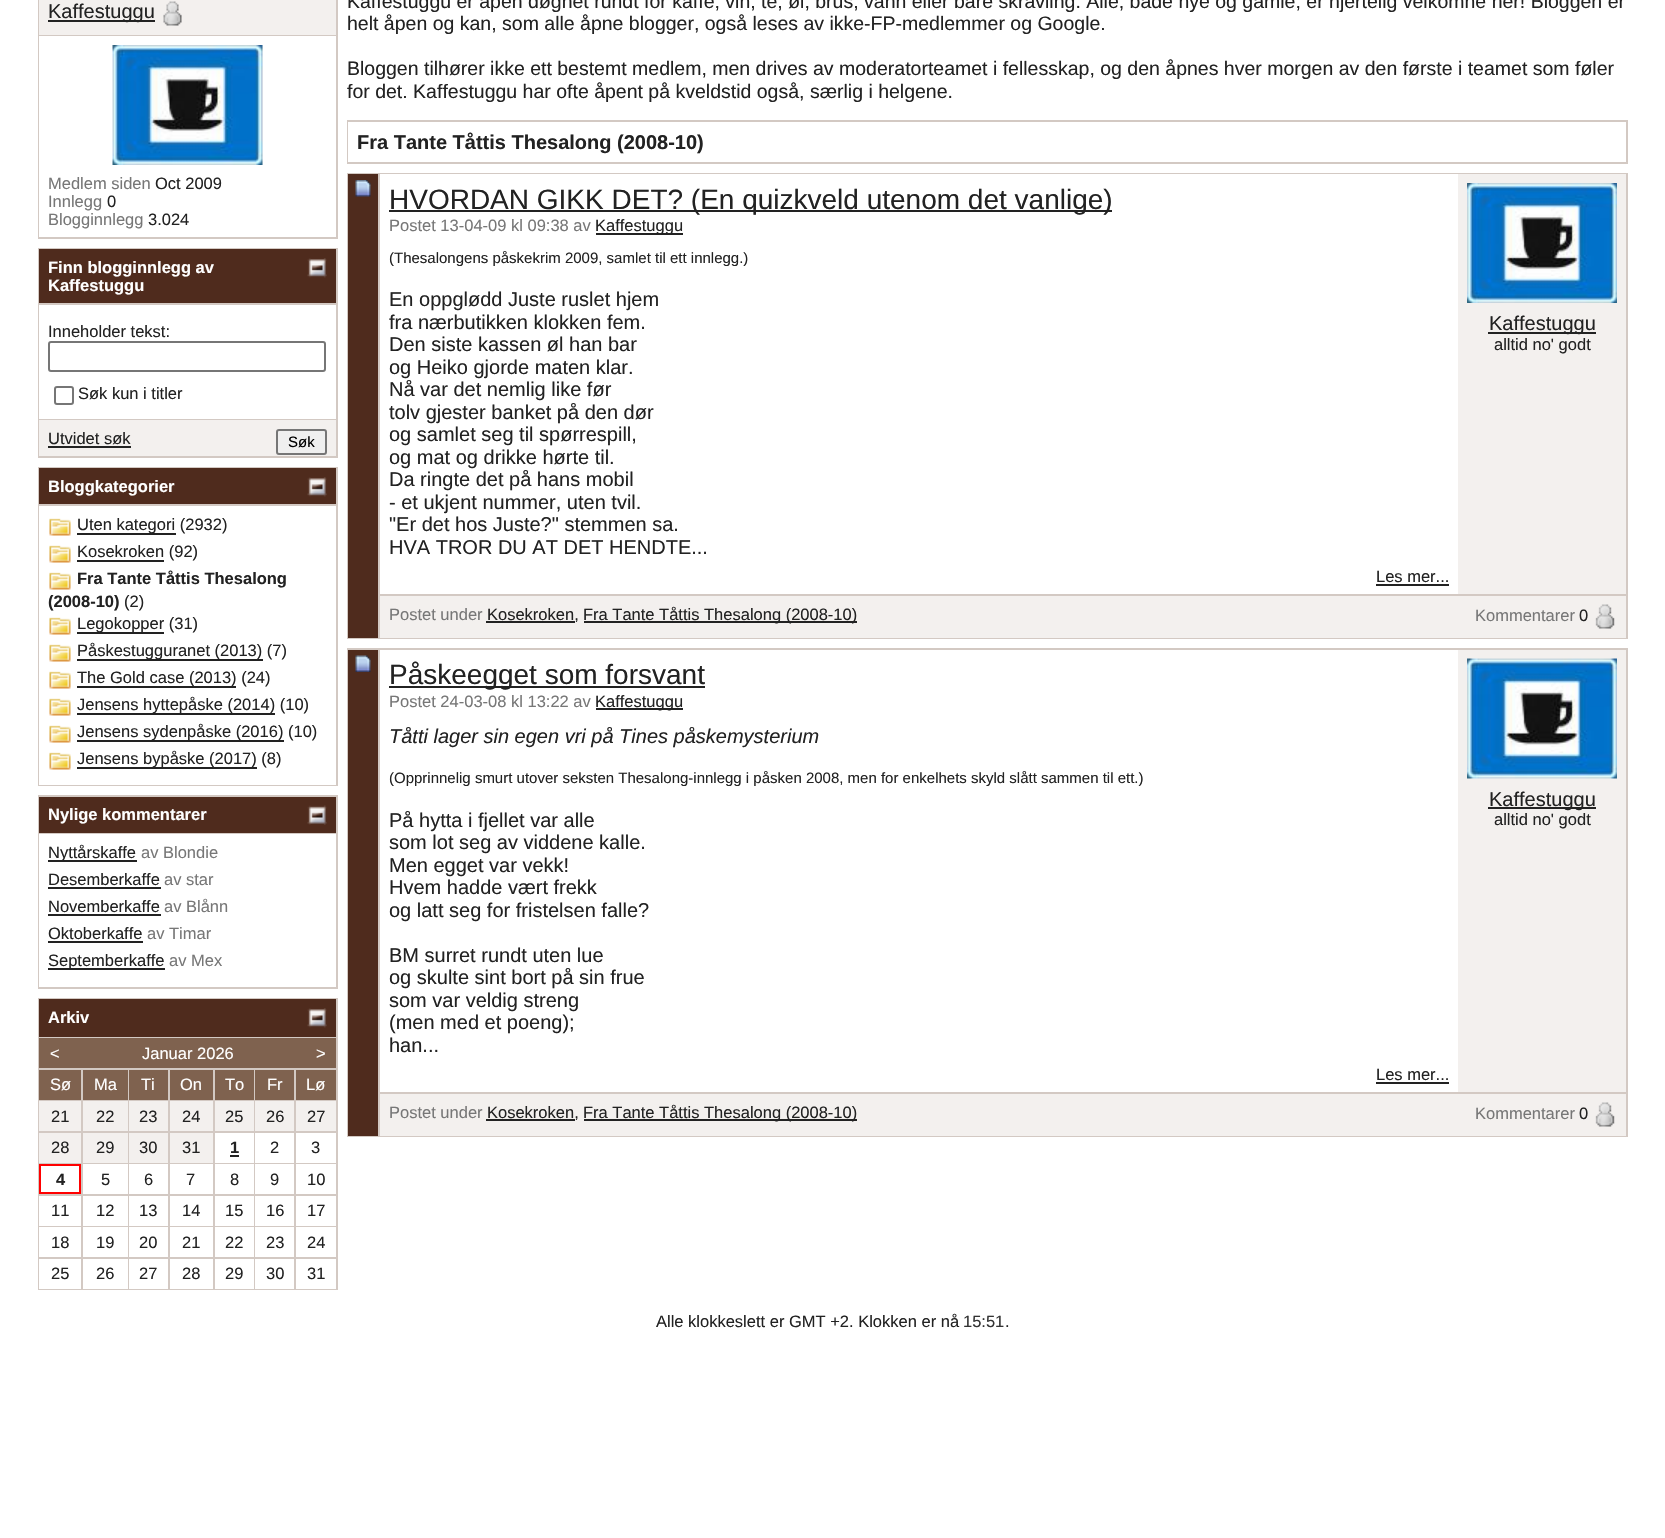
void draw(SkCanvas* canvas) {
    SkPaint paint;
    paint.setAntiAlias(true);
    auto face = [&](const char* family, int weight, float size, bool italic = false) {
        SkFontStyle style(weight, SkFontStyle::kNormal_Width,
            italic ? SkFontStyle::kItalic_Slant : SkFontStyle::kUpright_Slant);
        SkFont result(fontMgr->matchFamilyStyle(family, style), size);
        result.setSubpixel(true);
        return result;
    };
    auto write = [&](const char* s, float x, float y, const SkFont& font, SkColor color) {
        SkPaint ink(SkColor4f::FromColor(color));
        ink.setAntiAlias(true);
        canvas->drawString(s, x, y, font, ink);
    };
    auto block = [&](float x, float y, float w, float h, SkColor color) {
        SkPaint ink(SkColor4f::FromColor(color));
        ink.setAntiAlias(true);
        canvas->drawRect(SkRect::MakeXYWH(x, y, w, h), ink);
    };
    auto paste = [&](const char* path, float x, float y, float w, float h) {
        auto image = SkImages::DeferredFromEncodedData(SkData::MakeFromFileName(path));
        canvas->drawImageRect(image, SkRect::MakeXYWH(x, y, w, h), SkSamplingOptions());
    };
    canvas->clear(SK_ColorWHITE);
    block(38, 0, 300, 239, SkColorSetRGB(211, 201, 195));
    block(39, 0, 297, 35, SkColorSetRGB(243, 240, 238));
    block(48, 20, 107, 2, SkColorSetRGB(34, 34, 34));
    auto kFont1 = face("Liberation Sans", 400, 20);
    write("Kaffestuggu", 48, 18, kFont1, SkColorSetRGB(34, 34, 34));
    paste("pic1.png", 163, 1, 19, 25);
    block(39, 36, 297, 201, SK_ColorWHITE);
    block(262, 45, 1, 120, SkColorSetRGB(243, 240, 238));
    paste("pic2.png", 112, 45, 151, 120);
    auto kFont2 = face("Liberation Sans", 400, 16.5f);
    write("Medlem siden", 48, 189, kFont2, SkColorSetRGB(119, 119, 119));
    write("Oct 2009", 155, 189, kFont2, SkColorSetRGB(34, 34, 34));
    write("Innlegg", 48, 207, kFont2, SkColorSetRGB(119, 119, 119));
    write("0", 107, 207, kFont2, SkColorSetRGB(34, 34, 34));
    write("Blogginnlegg", 48, 225, kFont2, SkColorSetRGB(119, 119, 119));
    write("3.024", 148, 225, kFont2, SkColorSetRGB(34, 34, 34));
    block(38, 248, 300, 210, SkColorSetRGB(211, 201, 195));
    block(39, 249, 297, 54, SkColorSetRGB(79, 43, 29));
    auto kFont3 = face("Liberation Sans", 700, 16.5f);
    write("Finn blogginnlegg av", 48, 273, kFont3, SK_ColorWHITE);
    paste("pic3.png", 307, 258, 20, 20);
    write("Kaffestuggu", 48, 291, kFont3, SK_ColorWHITE);
    block(39, 305, 297, 114, SK_ColorWHITE);
    write("Inneholder tekst:", 48, 337, kFont2, SkColorSetRGB(34, 34, 34));
    paint.setStyle(SkPaint::kStroke_Style);
    paint.setStrokeWidth(2);
    paint.setColor(SkColorSetRGB(118, 118, 118));
    canvas->drawRoundRect(SkRect::MakeXYWH(49, 342, 276, 29), 2, 2, paint);
    canvas->drawRoundRect(SkRect::MakeXYWH(55, 387, 18, 17), 2, 2, paint);
    write("Søk kun i titler", 78, 399, kFont2, SkColorSetRGB(34, 34, 34));
    block(39, 420, 297, 36, SkColorSetRGB(243, 240, 238));
    write("Utvidet søk", 48, 444, kFont2, SkColorSetRGB(34, 34, 34));
    block(48, 446, 83, 2, SkColorSetRGB(34, 34, 34));
    paint.setStyle(SkPaint::kFill_Style);
    paint.setColor(SkColorSetRGB(239, 239, 239));
    canvas->drawRoundRect(SkRect::MakeXYWH(277, 430, 49, 24), 2, 2, paint);
    paint.setStyle(SkPaint::kStroke_Style);
    paint.setColor(SkColorSetRGB(118, 118, 118));
    canvas->drawRoundRect(SkRect::MakeXYWH(277, 430, 49, 24), 2, 2, paint);
    auto kFont4 = face("Liberation Sans", 400, 15);
    write("Søk", 288, 447, kFont4, SK_ColorBLACK);
    block(38, 467, 300, 319, SkColorSetRGB(211, 201, 195));
    block(39, 468, 297, 36, SkColorSetRGB(79, 43, 29));
    write("Bloggkategorier", 48, 492, kFont3, SK_ColorWHITE);
    paste("pic3.png", 307, 477, 20, 20);
    block(39, 506, 297, 279, SK_ColorWHITE);
    paste("pic4.png", 49, 518, 22, 18);
    block(77, 533, 99, 2, SkColorSetRGB(34, 34, 34));
    write("Uten kategori (2932)", 77, 530, kFont2, SkColorSetRGB(34, 34, 34));
    paste("pic4.png", 49, 545, 22, 18);
    block(77, 560, 87, 2, SkColorSetRGB(34, 34, 34));
    write("Kosekroken (92)", 77, 557, kFont2, SkColorSetRGB(34, 34, 34));
    paste("pic4.png", 49, 572, 22, 18);
    write("Fra Tante Tåttis Thesalong", 77, 584, kFont3, SkColorSetRGB(34, 34, 34));
    write("(2008-10)", 48, 607, kFont3, SkColorSetRGB(34, 34, 34));
    write("(2)", 124, 607, kFont2, SkColorSetRGB(34, 34, 34));
    paste("pic4.png", 49, 617, 22, 18);
    block(77, 632, 87, 2, SkColorSetRGB(34, 34, 34));
    write("Legokopper (31)", 77, 629, kFont2, SkColorSetRGB(34, 34, 34));
    paste("pic4.png", 49, 644, 22, 18);
    block(77, 659, 186, 2, SkColorSetRGB(34, 34, 34));
    write("Påskestugguranet (2013) (7)", 77, 656, kFont2, SkColorSetRGB(34, 34, 34));
    paste("pic4.png", 49, 671, 22, 18);
    block(77, 686, 159, 2, SkColorSetRGB(34, 34, 34));
    write("The Gold case (2013) (24)", 77, 683, kFont2, SkColorSetRGB(34, 34, 34));
    paste("pic4.png", 49, 698, 22, 18);
    block(77, 713, 198, 2, SkColorSetRGB(34, 34, 34));
    write("Jensens hyttepåske (2014) (10)", 77, 710, kFont2, SkColorSetRGB(34, 34, 34));
    paste("pic4.png", 49, 725, 22, 18);
    block(77, 740, 207, 2, SkColorSetRGB(34, 34, 34));
    write("Jensens sydenpåske (2016) (10)", 77, 737, kFont2, SkColorSetRGB(34, 34, 34));
    paste("pic4.png", 49, 752, 22, 18);
    block(77, 767, 180, 2, SkColorSetRGB(34, 34, 34));
    write("Jensens bypåske (2017) (8)", 77, 764, kFont2, SkColorSetRGB(34, 34, 34));
    block(38, 795, 300, 194, SkColorSetRGB(211, 201, 195));
    block(39, 797, 297, 36, SkColorSetRGB(79, 43, 29));
    write("Nylige kommentarer", 48, 820, kFont3, SK_ColorWHITE);
    paste("pic5.png", 307, 805, 20, 20);
    block(39, 834, 297, 153, SK_ColorWHITE);
    block(48, 860, 89, 2, SkColorSetRGB(34, 34, 34));
    write("Nyttårskaffe", 48, 858, kFont2, SkColorSetRGB(34, 34, 34));
    write("av Blondie", 141, 858, kFont2, SkColorSetRGB(119, 119, 119));
    write("Desemberkaffe", 48, 885, kFont2, SkColorSetRGB(34, 34, 34));
    block(48, 887, 113, 2, SkColorSetRGB(34, 34, 34));
    write("av star", 164, 885, kFont2, SkColorSetRGB(119, 119, 119));
    write("Novemberkaffe", 48, 912, kFont2, SkColorSetRGB(34, 34, 34));
    block(48, 914, 113, 2, SkColorSetRGB(34, 34, 34));
    write("av Blånn", 164, 912, kFont2, SkColorSetRGB(119, 119, 119));
    write("Oktoberkaffe", 48, 939, kFont2, SkColorSetRGB(34, 34, 34));
    block(48, 941, 95, 2, SkColorSetRGB(34, 34, 34));
    write("av Timar", 147, 939, kFont2, SkColorSetRGB(119, 119, 119));
    block(48, 968, 117, 2, SkColorSetRGB(34, 34, 34));
    write("Septemberkaffe", 48, 966, kFont2, SkColorSetRGB(34, 34, 34));
    write("av Mex", 169, 966, kFont2, SkColorSetRGB(119, 119, 119));
    block(38, 998, 300, 292, SkColorSetRGB(211, 201, 195));
    block(39, 999, 297, 38, SkColorSetRGB(79, 43, 29));
    write("Arkiv", 48, 1023, kFont3, SK_ColorWHITE);
    paste("pic3.png", 307, 1008, 20, 20);
    block(39, 1038, 297, 30, SkColorSetRGB(127, 98, 79));
    write("<", 50, 1059, kFont2, SK_ColorWHITE);
    write("Januar 2026", 142, 1059, kFont2, SK_ColorWHITE);
    write(">", 316, 1059, kFont2, SK_ColorWHITE);
    block(39, 1070, 42, 30, SkColorSetRGB(127, 98, 79));
    write("Sø", 50, 1090, kFont2, SK_ColorWHITE);
    block(83, 1070, 45, 30, SkColorSetRGB(127, 98, 79));
    write("Ma", 94, 1090, kFont2, SK_ColorWHITE);
    block(129, 1070, 39, 30, SkColorSetRGB(127, 98, 79));
    write("Ti", 141, 1090, kFont2, SK_ColorWHITE);
    block(170, 1070, 43, 30, SkColorSetRGB(127, 98, 79));
    write("On", 180, 1090, kFont2, SK_ColorWHITE);
    block(215, 1070, 39, 30, SkColorSetRGB(127, 98, 79));
    write("To", 225, 1090, kFont2, SK_ColorWHITE);
    block(255, 1070, 39, 30, SkColorSetRGB(127, 98, 79));
    write("Fr", 267, 1090, kFont2, SK_ColorWHITE);
    block(296, 1070, 40, 30, SkColorSetRGB(127, 98, 79));
    write("Lø", 306, 1090, kFont2, SK_ColorWHITE);
    block(39, 1101, 42, 30, SkColorSetRGB(243, 240, 238));
    write("21", 51, 1122, kFont2, SkColorSetRGB(34, 34, 34));
    block(83, 1101, 45, 30, SkColorSetRGB(243, 240, 238));
    write("22", 96, 1122, kFont2, SkColorSetRGB(34, 34, 34));
    block(129, 1101, 39, 30, SkColorSetRGB(243, 240, 238));
    write("23", 139, 1122, kFont2, SkColorSetRGB(34, 34, 34));
    block(170, 1101, 43, 30, SkColorSetRGB(243, 240, 238));
    write("24", 182, 1122, kFont2, SkColorSetRGB(34, 34, 34));
    block(215, 1101, 39, 30, SkColorSetRGB(243, 240, 238));
    write("25", 225, 1122, kFont2, SkColorSetRGB(34, 34, 34));
    block(255, 1101, 39, 30, SkColorSetRGB(243, 240, 238));
    write("26", 266, 1122, kFont2, SkColorSetRGB(34, 34, 34));
    block(296, 1101, 40, 30, SkColorSetRGB(243, 240, 238));
    write("27", 307, 1122, kFont2, SkColorSetRGB(34, 34, 34));
    block(39, 1133, 42, 30, SkColorSetRGB(243, 240, 238));
    write("28", 51, 1153, kFont2, SkColorSetRGB(34, 34, 34));
    block(83, 1133, 45, 30, SkColorSetRGB(243, 240, 238));
    write("29", 96, 1153, kFont2, SkColorSetRGB(34, 34, 34));
    block(129, 1133, 39, 30, SkColorSetRGB(243, 240, 238));
    write("30", 139, 1153, kFont2, SkColorSetRGB(34, 34, 34));
    block(170, 1133, 43, 30, SkColorSetRGB(243, 240, 238));
    write("31", 182, 1153, kFont2, SkColorSetRGB(34, 34, 34));
    block(215, 1133, 39, 30, SK_ColorWHITE);
    write("1", 230, 1153, kFont3, SkColorSetRGB(34, 34, 34));
    block(230, 1155, 9, 2, SkColorSetRGB(34, 34, 34));
    block(255, 1133, 39, 30, SK_ColorWHITE);
    write("2", 270, 1153, kFont2, SkColorSetRGB(34, 34, 34));
    block(296, 1133, 40, 30, SK_ColorWHITE);
    write("3", 311, 1153, kFont2, SkColorSetRGB(34, 34, 34));
    paint.setStyle(SkPaint::kFill_Style);
    paint.setColor(SK_ColorWHITE);
    canvas->drawRect(SkRect::MakeXYWH(40, 1165, 40, 28), paint);
    paint.setStyle(SkPaint::kStroke_Style);
    paint.setColor(SkColorSetRGB(255, 0, 0));
    canvas->drawRect(SkRect::MakeXYWH(40, 1165, 40, 28), paint);
    write("4", 56, 1185, kFont3, SkColorSetRGB(34, 34, 34));
    block(83, 1164, 45, 30, SK_ColorWHITE);
    write("5", 101, 1185, kFont2, SkColorSetRGB(34, 34, 34));
    block(129, 1164, 39, 30, SK_ColorWHITE);
    write("6", 144, 1185, kFont2, SkColorSetRGB(34, 34, 34));
    block(170, 1164, 43, 30, SK_ColorWHITE);
    write("7", 186, 1185, kFont2, SkColorSetRGB(34, 34, 34));
    block(215, 1164, 39, 30, SK_ColorWHITE);
    write("8", 230, 1185, kFont2, SkColorSetRGB(34, 34, 34));
    block(255, 1164, 39, 30, SK_ColorWHITE);
    write("9", 270, 1185, kFont2, SkColorSetRGB(34, 34, 34));
    block(296, 1164, 40, 30, SK_ColorWHITE);
    write("10", 307, 1185, kFont2, SkColorSetRGB(34, 34, 34));
    block(39, 1196, 42, 30, SK_ColorWHITE);
    write("11", 51, 1216, kFont2, SkColorSetRGB(34, 34, 34));
    block(83, 1196, 45, 30, SK_ColorWHITE);
    write("12", 96, 1216, kFont2, SkColorSetRGB(34, 34, 34));
    block(129, 1196, 39, 30, SK_ColorWHITE);
    write("13", 139, 1216, kFont2, SkColorSetRGB(34, 34, 34));
    block(170, 1196, 43, 30, SK_ColorWHITE);
    write("14", 182, 1216, kFont2, SkColorSetRGB(34, 34, 34));
    block(215, 1196, 39, 30, SK_ColorWHITE);
    write("15", 225, 1216, kFont2, SkColorSetRGB(34, 34, 34));
    block(255, 1196, 39, 30, SK_ColorWHITE);
    write("16", 266, 1216, kFont2, SkColorSetRGB(34, 34, 34));
    block(296, 1196, 40, 30, SK_ColorWHITE);
    write("17", 307, 1216, kFont2, SkColorSetRGB(34, 34, 34));
    block(39, 1227, 42, 30, SK_ColorWHITE);
    write("18", 51, 1248, kFont2, SkColorSetRGB(34, 34, 34));
    block(83, 1227, 45, 30, SK_ColorWHITE);
    write("19", 96, 1248, kFont2, SkColorSetRGB(34, 34, 34));
    block(129, 1227, 39, 30, SK_ColorWHITE);
    write("20", 139, 1248, kFont2, SkColorSetRGB(34, 34, 34));
    block(170, 1227, 43, 30, SK_ColorWHITE);
    write("21", 182, 1248, kFont2, SkColorSetRGB(34, 34, 34));
    block(215, 1227, 39, 30, SK_ColorWHITE);
    write("22", 225, 1248, kFont2, SkColorSetRGB(34, 34, 34));
    block(255, 1227, 39, 30, SK_ColorWHITE);
    write("23", 266, 1248, kFont2, SkColorSetRGB(34, 34, 34));
    block(296, 1227, 40, 30, SK_ColorWHITE);
    write("24", 307, 1248, kFont2, SkColorSetRGB(34, 34, 34));
    block(39, 1259, 42, 30, SK_ColorWHITE);
    write("25", 51, 1279, kFont2, SkColorSetRGB(34, 34, 34));
    block(83, 1259, 45, 30, SK_ColorWHITE);
    write("26", 96, 1279, kFont2, SkColorSetRGB(34, 34, 34));
    block(129, 1259, 39, 30, SK_ColorWHITE);
    write("27", 139, 1279, kFont2, SkColorSetRGB(34, 34, 34));
    block(170, 1259, 43, 30, SK_ColorWHITE);
    write("28", 182, 1279, kFont2, SkColorSetRGB(34, 34, 34));
    block(215, 1259, 39, 30, SK_ColorWHITE);
    write("29", 225, 1279, kFont2, SkColorSetRGB(34, 34, 34));
    block(255, 1259, 39, 30, SK_ColorWHITE);
    write("30", 266, 1279, kFont2, SkColorSetRGB(34, 34, 34));
    block(296, 1259, 40, 30, SK_ColorWHITE);
    write("31", 307, 1279, kFont2, SkColorSetRGB(34, 34, 34));
    auto kFont5 = face("Liberation Sans", 400, 19.5f);
    write("Kaffestuggu er åpen døgnet rundt for kaffe, vin, te, øl, brus, vann eller bare skravling. Alle, både nye og gamle, er hjertelig velkomne her! Bloggen er", 347, 8, kFont5, SkColorSetRGB(34, 34, 34));
    write("helt åpen og kan, som alle åpne blogger, også leses av ikke-FP-medlemmer og Google.", 347, 30, kFont5, SkColorSetRGB(34, 34, 34));
    write("Bloggen tilhører ikke ett bestemt medlem, men drives av moderatorteamet i fellesskap, og den åpnes hver morgen av den første i teamet som føler", 347, 75, kFont5, SkColorSetRGB(34, 34, 34));
    write("for det. Kaffestuggu har ofte åpent på kveldstid også, særlig i helgene.", 347, 98, kFont5, SkColorSetRGB(34, 34, 34));
    block(347, 120, 1281, 44, SkColorSetRGB(211, 201, 195));
    block(348, 122, 1278, 40, SK_ColorWHITE);
    auto kFont6 = face("Liberation Sans", 700, 20);
    write("Fra Tante Tåttis Thesalong (2008-10)", 357, 149, kFont6, SkColorSetRGB(34, 34, 34));
    block(347, 173, 1281, 466, SkColorSetRGB(211, 201, 195));
    block(348, 174, 30, 464, SkColorSetRGB(79, 43, 29));
    paste("pic6.png", 355, 180, 16, 17);
    block(380, 174, 1078, 420, SK_ColorWHITE);
    block(389, 210, 723, 2, SkColorSetRGB(34, 34, 34));
    auto kFont7 = face("Liberation Sans", 400, 28);
    write("HVORDAN GIKK DET? (En quizkveld utenom det vanlige)", 389, 209, kFont7, SkColorSetRGB(34, 34, 34));
    write("Postet 13-04-09 kl 09:38 av", 389, 231, kFont2, SkColorSetRGB(119, 119, 119));
    block(596, 233, 87, 2, SkColorSetRGB(34, 34, 34));
    write("Kaffestuggu", 595, 231, kFont2, SkColorSetRGB(34, 34, 34));
    write("(Thesalongens påskekrim 2009, samlet til ett innlegg.)", 389, 263, kFont4, SkColorSetRGB(34, 34, 34));
    write("En oppglødd Juste ruslet hjem", 389, 306, kFont1, SkColorSetRGB(34, 34, 34));
    write("fra nærbutikken klokken fem.", 389, 329, kFont1, SkColorSetRGB(34, 34, 34));
    write("Den siste kassen øl han bar", 389, 351, kFont1, SkColorSetRGB(34, 34, 34));
    write("og Heiko gjorde maten klar.", 389, 374, kFont1, SkColorSetRGB(34, 34, 34));
    write("Nå var det nemlig like før", 389, 396, kFont1, SkColorSetRGB(34, 34, 34));
    write("tolv gjester banket på den dør", 389, 419, kFont1, SkColorSetRGB(34, 34, 34));
    write("og samlet seg til spørrespill,", 389, 441, kFont1, SkColorSetRGB(34, 34, 34));
    write("og mat og drikke hørte til.", 389, 464, kFont1, SkColorSetRGB(34, 34, 34));
    write("Da ringte det på hans mobil", 389, 486, kFont1, SkColorSetRGB(34, 34, 34));
    write("- et ukjent nummer, uten tvil.", 389, 509, kFont1, SkColorSetRGB(34, 34, 34));
    write("\"Er det hos Juste?\" stemmen sa.", 389, 531, kFont1, SkColorSetRGB(34, 34, 34));
    write("HVA TROR DU AT DET HENDTE...", 389, 554, kFont1, SkColorSetRGB(34, 34, 34));
    write("Les mer...", 1376, 582, kFont2, SkColorSetRGB(34, 34, 34));
    block(1376, 584, 73, 2, SkColorSetRGB(34, 34, 34));
    block(1458, 174, 168, 420, SkColorSetRGB(243, 240, 238));
    paste("pic7.png", 1467, 183, 150, 120);
    block(1488, 332, 108, 2, SkColorSetRGB(34, 34, 34));
    write("Kaffestuggu", 1489, 330, kFont1, SkColorSetRGB(34, 34, 34));
    write("alltid no' godt", 1494, 350, kFont2, SkColorSetRGB(34, 34, 34));
    block(380, 596, 1246, 42, SkColorSetRGB(243, 240, 238));
    write("Postet under", 389, 620, kFont2, SkColorSetRGB(119, 119, 119));
    block(486, 621, 89, 2, SkColorSetRGB(34, 34, 34));
    write("Kosekroken,", 487, 620, kFont2, SkColorSetRGB(34, 34, 34));
    block(584, 621, 273, 2, SkColorSetRGB(34, 34, 34));
    write("Fra Tante Tåttis Thesalong (2008-10)", 583, 620, kFont2, SkColorSetRGB(34, 34, 34));
    write("Kommentarer", 1475, 621, kFont2, SkColorSetRGB(119, 119, 119));
    write("0", 1579, 621, kFont2, SkColorSetRGB(34, 34, 34));
    paste("pic8.png", 1595, 604, 20, 25);
    block(347, 648, 1281, 489, SkColorSetRGB(211, 201, 195));
    block(348, 650, 30, 486, SkColorSetRGB(79, 43, 29));
    paste("pic9.png", 355, 655, 16, 17);
    block(380, 650, 1078, 442, SK_ColorWHITE);
    block(389, 686, 316, 2, SkColorSetRGB(34, 34, 34));
    write("Påskeegget som forsvant", 389, 684, kFont7, SkColorSetRGB(34, 34, 34));
    write("Postet 24-03-08 kl 13:22 av", 389, 707, kFont2, SkColorSetRGB(119, 119, 119));
    block(596, 708, 87, 2, SkColorSetRGB(34, 34, 34));
    write("Kaffestuggu", 595, 707, kFont2, SkColorSetRGB(34, 34, 34));
    auto kFont8 = face("Liberation Sans", 400, 20, true);
    write("Tåtti lager sin egen vri på Tines påskemysterium", 389, 743, kFont8, SkColorSetRGB(34, 34, 34));
    write("(Opprinnelig smurt utover seksten Thesalong-innlegg i påsken 2008, men for enkelhets skyld slått sammen til ett.)", 389, 783, kFont4, SkColorSetRGB(34, 34, 34));
    write("På hytta i fjellet var alle", 389, 827, kFont1, SkColorSetRGB(34, 34, 34));
    write("som lot seg av viddene kalle.", 389, 849, kFont1, SkColorSetRGB(34, 34, 34));
    write("Men egget var vekk!", 389, 872, kFont1, SkColorSetRGB(34, 34, 34));
    write("Hvem hadde vært frekk", 389, 894, kFont1, SkColorSetRGB(34, 34, 34));
    write("og latt seg for fristelsen falle?", 389, 917, kFont1, SkColorSetRGB(34, 34, 34));
    write("BM surret rundt uten lue", 389, 962, kFont1, SkColorSetRGB(34, 34, 34));
    write("og skulte sint bort på sin frue", 389, 984, kFont1, SkColorSetRGB(34, 34, 34));
    write("som var veldig streng", 389, 1007, kFont1, SkColorSetRGB(34, 34, 34));
    write("(men med et poeng);", 389, 1029, kFont1, SkColorSetRGB(34, 34, 34));
    write("han...", 389, 1052, kFont1, SkColorSetRGB(34, 34, 34));
    write("Les mer...", 1376, 1080, kFont2, SkColorSetRGB(34, 34, 34));
    block(1376, 1082, 73, 2, SkColorSetRGB(34, 34, 34));
    block(1458, 650, 168, 442, SkColorSetRGB(243, 240, 238));
    paste("pic10.png", 1467, 658, 150, 121);
    block(1488, 807, 108, 2, SkColorSetRGB(34, 34, 34));
    write("Kaffestuggu", 1489, 806, kFont1, SkColorSetRGB(34, 34, 34));
    write("alltid no' godt", 1494, 825, kFont2, SkColorSetRGB(34, 34, 34));
    block(380, 1094, 1246, 42, SkColorSetRGB(243, 240, 238));
    write("Postet under", 389, 1118, kFont2, SkColorSetRGB(119, 119, 119));
    block(486, 1119, 89, 2, SkColorSetRGB(34, 34, 34));
    write("Kosekroken,", 487, 1118, kFont2, SkColorSetRGB(34, 34, 34));
    block(584, 1119, 273, 2, SkColorSetRGB(34, 34, 34));
    write("Fra Tante Tåttis Thesalong (2008-10)", 583, 1118, kFont2, SkColorSetRGB(34, 34, 34));
    write("Kommentarer", 1475, 1119, kFont2, SkColorSetRGB(119, 119, 119));
    write("0", 1579, 1119, kFont2, SkColorSetRGB(34, 34, 34));
    paste("pic8.png", 1595, 1102, 20, 25);
    write("Alle klokkeslett er GMT +2. Klokken er nå", 656, 1327, kFont2, SkColorSetRGB(34, 34, 34));
    write("15:51", 963, 1327, kFont2, SkColorSetRGB(51, 51, 51));
    write(".", 1005, 1327, kFont2, SkColorSetRGB(34, 34, 34));
}
